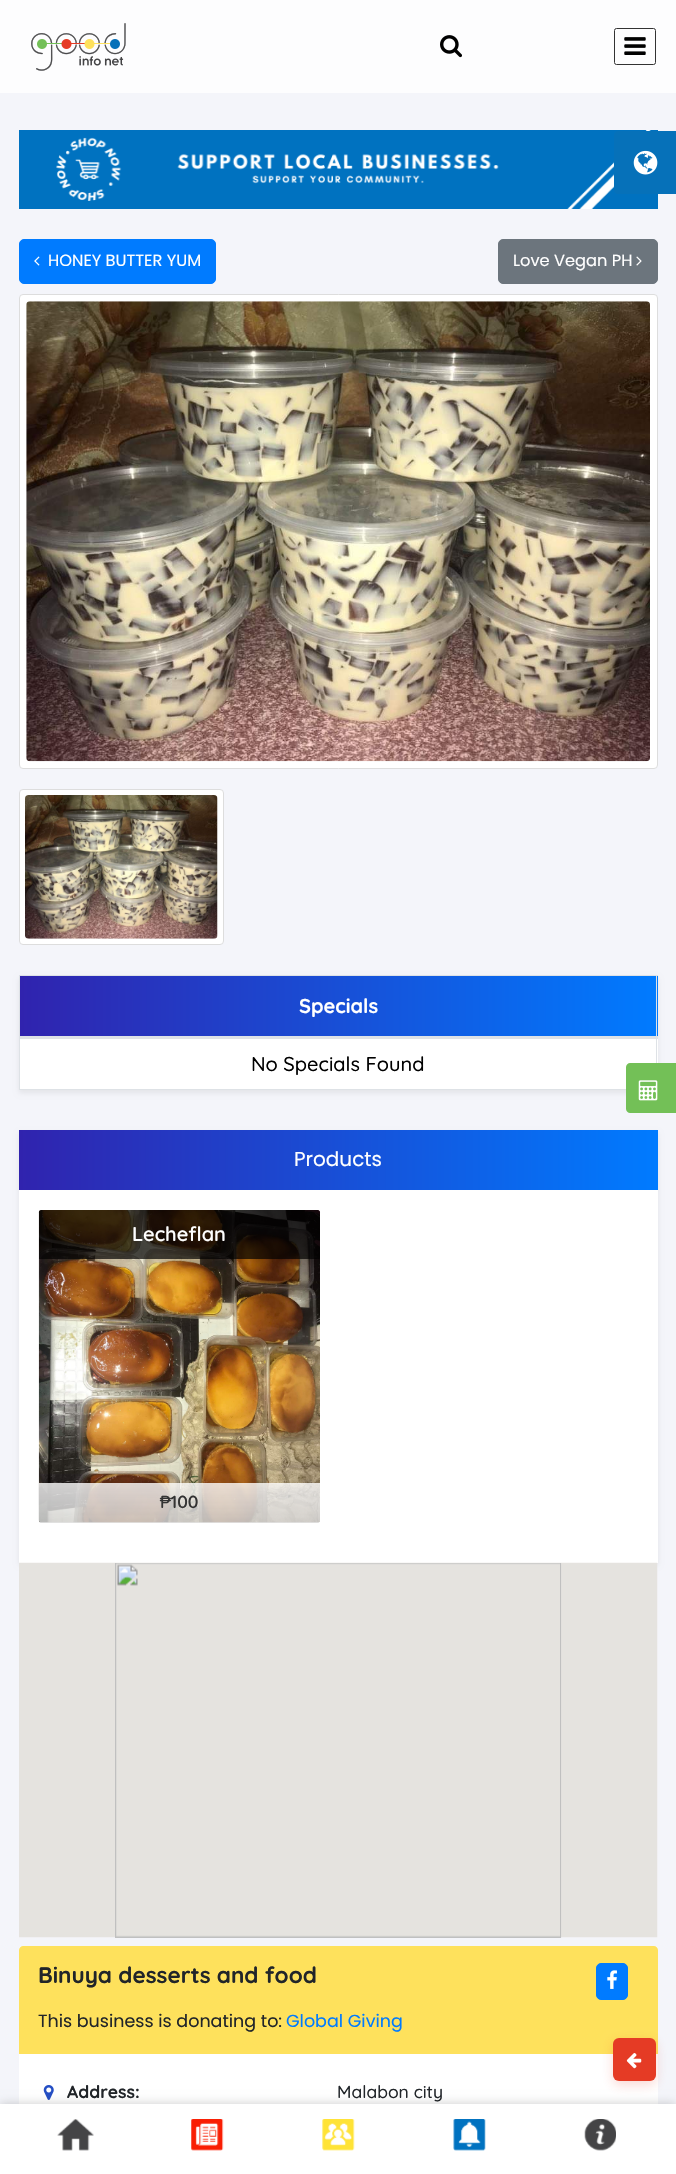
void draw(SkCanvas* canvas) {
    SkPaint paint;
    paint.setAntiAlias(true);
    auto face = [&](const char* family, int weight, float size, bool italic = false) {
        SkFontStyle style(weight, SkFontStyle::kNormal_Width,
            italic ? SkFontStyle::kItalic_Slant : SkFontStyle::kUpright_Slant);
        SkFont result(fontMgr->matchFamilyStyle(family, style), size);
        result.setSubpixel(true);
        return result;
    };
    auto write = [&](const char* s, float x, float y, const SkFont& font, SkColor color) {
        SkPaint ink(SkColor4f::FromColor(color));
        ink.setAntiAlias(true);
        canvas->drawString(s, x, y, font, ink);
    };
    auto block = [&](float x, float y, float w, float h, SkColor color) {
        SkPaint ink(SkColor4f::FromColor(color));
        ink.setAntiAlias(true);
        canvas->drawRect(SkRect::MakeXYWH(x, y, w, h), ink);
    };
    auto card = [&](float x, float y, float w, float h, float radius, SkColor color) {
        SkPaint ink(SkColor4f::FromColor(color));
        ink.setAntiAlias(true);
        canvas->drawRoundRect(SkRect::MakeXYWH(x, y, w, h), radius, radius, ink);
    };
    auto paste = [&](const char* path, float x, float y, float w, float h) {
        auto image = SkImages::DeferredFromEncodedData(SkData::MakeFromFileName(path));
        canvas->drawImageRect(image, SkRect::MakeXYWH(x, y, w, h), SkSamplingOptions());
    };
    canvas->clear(SkColorSetRGB(244, 245, 250));
    block(0, 0, 676, 93, SkColorSetRGB(253, 253, 254));
    paste("pic1.png", 31, 23, 95, 48);
    paste("pic2.png", 440, 35, 22, 23);
    paint.setStyle(SkPaint::kStroke_Style);
    paint.setStrokeWidth(1);
    paint.setColor(SkColorSetRGB(51, 51, 51));
    canvas->drawRoundRect(SkRect::MakeXYWH(614.5f, 28.5f, 41, 36), 2, 2, paint);
    paste("pic3.png", 624, 37, 22, 18);
    paste("pic5.png", 19, 130, 639, 79);
    paint.setStyle(SkPaint::kFill_Style);
    paint.setColor(SkColorSetRGB(6, 113, 185));
    canvas->drawPath(SkPathBuilder().moveTo(618, 131).lineTo(676, 131).lineTo(676, 194).lineTo(618, 194).cubicTo(616, 194, 614, 192, 614, 190).lineTo(614, 135).cubicTo(614, 133, 616, 131, 618, 131).close().detach(), paint);
    paste("pic4.png", 633, 150, 25, 25);
    paint.setColor(SkColorSetRGB(0, 123, 255));
    canvas->drawRoundRect(SkRect::MakeXYWH(19.5f, 239.5f, 196, 44), 4.5f, 4.5f, paint);
    paint.setStyle(SkPaint::kStroke_Style);
    canvas->drawRoundRect(SkRect::MakeXYWH(19.5f, 239.5f, 196, 44), 4.5f, 4.5f, paint);
    paste("pic6.png", 34, 256, 6, 10);
    auto kFont1 = face("Poppins", 400, 16.25f);
    write("HONEY BUTTER YUM", 48, 266, kFont1, SK_ColorWHITE);
    paint.setStyle(SkPaint::kFill_Style);
    paint.setColor(SkColorSetRGB(108, 117, 125));
    canvas->drawRoundRect(SkRect::MakeXYWH(498.5f, 239.5f, 159, 44), 4.5f, 4.5f, paint);
    paint.setStyle(SkPaint::kStroke_Style);
    canvas->drawRoundRect(SkRect::MakeXYWH(498.5f, 239.5f, 159, 44), 4.5f, 4.5f, paint);
    write("Love Vegan PH", 513, 266, kFont1, SK_ColorWHITE);
    paste("pic7.png", 636, 256, 6, 10);
    paint.setStyle(SkPaint::kFill_Style);
    paint.setColor(SK_ColorWHITE);
    canvas->drawRoundRect(SkRect::MakeXYWH(19.5f, 294.5f, 638, 474), 3.5f, 3.5f, paint);
    paint.setStyle(SkPaint::kStroke_Style);
    paint.setColor(SkColorSetRGB(221, 221, 221));
    canvas->drawRoundRect(SkRect::MakeXYWH(19.5f, 294.5f, 638, 474), 3.5f, 3.5f, paint);
    paste("pic8.png", 26, 301, 624, 461);
    paint.setStyle(SkPaint::kFill_Style);
    paint.setColor(SK_ColorWHITE);
    canvas->drawRoundRect(SkRect::MakeXYWH(19.5f, 789.5f, 204, 155), 3.5f, 3.5f, paint);
    paint.setStyle(SkPaint::kStroke_Style);
    paint.setColor(SkColorSetRGB(221, 221, 221));
    canvas->drawRoundRect(SkRect::MakeXYWH(19.5f, 789.5f, 204, 155), 3.5f, 3.5f, paint);
    paste("pic9.png", 25, 795, 193, 144);
    paint.setStyle(SkPaint::kFill_Style);
    paint.setColor(SkColorSetARGB(18, 0, 0, 0));
    paint.setMaskFilter(SkMaskFilter::MakeBlur(kNormal_SkBlurStyle, 2.5f));
    canvas->drawRect(SkRect::MakeXYWH(19, 978, 639, 115), paint);
    paint.setMaskFilter(nullptr);
    block(20, 1039, 638, 50, SK_ColorWHITE);
    {
        const SkColor colors[] = {SkColorSetRGB(48, 35, 174), SkColorSetRGB(0, 123, 255)};
        const float stops[] = {0, 1};
        const SkPoint ends[] = {{20, 1006}, {658, 1006}};
        paint.setShader(SkGradientShader::MakeLinear(ends, colors, stops, 2, SkTileMode::kClamp));
        paint.setAlpha(255);
    }
    canvas->drawRect(SkRect::MakeXYWH(20, 976, 638, 60), paint);
    block(19, 975, 639, 1, SkColorSetRGB(222, 226, 230));
    block(656, 1036, 1, 27, SkColorSetRGB(222, 226, 230));
    block(656, 975, 1, 63, SkColorSetRGB(222, 226, 230));
    block(19, 1089, 607, 1, SkColorSetRGB(222, 226, 230));
    block(19, 1036, 1, 54, SkColorSetRGB(222, 226, 230));
    block(19, 975, 1, 63, SkColorSetRGB(222, 226, 230));
    block(19, 1036, 639, 3, SkColorSetRGB(222, 226, 230));
    auto kFont2 = face("Quicksand", 700, 20);
    write("Specials", 299, 1013, kFont2, SK_ColorWHITE);
    auto kFont3 = face("Quicksand", 500, 20);
    write("No Specials Found", 251, 1071, kFont3, SK_ColorBLACK);
    paint.setShader(nullptr);
    paint.setColor(SkColorSetARGB(18, 0, 0, 0));
    paint.setMaskFilter(SkMaskFilter::MakeBlur(kNormal_SkBlurStyle, 2.5f));
    canvas->drawRect(SkRect::MakeXYWH(19, 1133, 639, 432), paint);
    paint.setMaskFilter(nullptr);
    block(19, 1190, 639, 373, SK_ColorWHITE);
    {
        const SkColor colors[] = {SkColorSetRGB(48, 35, 174), SkColorSetRGB(0, 123, 255)};
        const float stops[] = {0, 1};
        const SkPoint ends[] = {{19, 1160}, {658, 1160}};
        paint.setShader(SkGradientShader::MakeLinear(ends, colors, stops, 2, SkTileMode::kClamp));
        paint.setAlpha(255);
    }
    canvas->drawRect(SkRect::MakeXYWH(19, 1130, 639, 60), paint);
    auto kFont4 = face("Poppins", 400, 20);
    write("Products", 294, 1166, kFont4, SK_ColorWHITE);
    paste("pic10.png", 38, 1210, 282, 313);
    paint.setShader(nullptr);
    paint.setColor(SkColorSetARGB(179, 0, 0, 0));
    canvas->drawPath(SkPathBuilder().moveTo(41.5f, 1210).lineTo(317.5f, 1210).cubicTo(319, 1210, 320, 1211, 320, 1212.5f).lineTo(320, 1259).lineTo(39, 1259).lineTo(39, 1212.5f).cubicTo(39, 1211, 40, 1210, 41.5f, 1210).close().detach(), paint);
    auto kFont5 = face("Quicksand", 600, 20);
    write("Lecheflan", 132, 1241, kFont5, SK_ColorWHITE);
    {
        const SkColor colors[] = {SkColorSetARGB(204, 255, 255, 255), SkColorSetARGB(204, 221, 221, 221)};
        const float stops[] = {0, 1};
        const SkPoint ends[] = {{179, 1483}, {179, 1523}};
        paint.setShader(SkGradientShader::MakeLinear(ends, colors, stops, 2, SkTileMode::kClamp));
        paint.setAlpha(255);
    }
    canvas->drawPath(SkPathBuilder().moveTo(39, 1483).lineTo(320, 1483).lineTo(320, 1520.5f).cubicTo(320, 1522, 319, 1523, 317.5f, 1523).lineTo(41.5f, 1523).cubicTo(40, 1523, 39, 1522, 39, 1520.5f).close().detach(), paint);
    auto kFont6 = face("Quicksand", 600, 17.5f);
    write("₱100", 160, 1508, kFont6, SkColorSetRGB(51, 51, 51));
    paste("pic11.png", 19, 1562, 639, 376);
    card(19, 1946, 639, 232, 4, SK_ColorWHITE);
    paint.setShader(nullptr);
    paint.setColor(SkColorSetRGB(254, 225, 92));
    canvas->drawPath(SkPathBuilder().moveTo(23, 1946).lineTo(654, 1946).cubicTo(656, 1946, 658, 1948, 658, 1950).lineTo(658, 2054).lineTo(19, 2054).lineTo(19, 1950).cubicTo(19, 1948, 21, 1946, 23, 1946).close().detach(), paint);
    auto kFont7 = face("Quicksand", 700, 22.5f);
    write("Binuya desserts and food", 38, 1983, kFont7, SkColorSetRGB(33, 37, 41));
    paint.setColor(SkColorSetRGB(0, 123, 255));
    canvas->drawRoundRect(SkRect::MakeXYWH(596.5f, 1963.5f, 31, 36), 4.5f, 4.5f, paint);
    paint.setStyle(SkPaint::kStroke_Style);
    canvas->drawRoundRect(SkRect::MakeXYWH(596.5f, 1963.5f, 31, 36), 4.5f, 4.5f, paint);
    paste("pic12.png", 607, 1970, 10, 19);
    auto kFont8 = face("Poppins", 400, 17.5f);
    write("This business is donating to:", 38, 2027, kFont8, SkColorSetRGB(33, 37, 41));
    write("Global Giving", 286, 2027, kFont8, SkColorSetRGB(0, 123, 255));
    paste("pic13.png", 43, 2085, 11, 15);
    auto kFont9 = face("Quicksand", 700, 17.5f);
    write("Address:", 67, 2098, kFont9, SkColorSetRGB(33, 37, 41));
    auto kFont10 = face("Quicksand", 500, 17.5f);
    write("Malabon city", 337, 2098, kFont10, SkColorSetRGB(33, 37, 41));
    paint.setStyle(SkPaint::kFill_Style);
    paint.setColor(SkColorSetRGB(115, 192, 87));
    canvas->drawPath(SkPathBuilder().moveTo(630, 1063).lineTo(676, 1063).lineTo(676, 1113).lineTo(630, 1113).cubicTo(628, 1113, 626, 1111, 626, 1109).lineTo(626, 1067).cubicTo(626, 1065, 628, 1063, 630, 1063).close().detach(), paint);
    paste("pic14.png", 638, 1080, 20, 21);
    paint.setColor(SkColorSetARGB(51, 0, 0, 0));
    paint.setMaskFilter(SkMaskFilter::MakeBlur(kNormal_SkBlurStyle, 5));
    canvas->drawRect(SkRect::MakeXYWH(0, 2104, 676, 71), paint);
    paint.setMaskFilter(nullptr);
    block(0, 2104, 676, 70, SK_ColorWHITE);
    paste("pic15.png", 57, 2119, 37, 32);
    paste("pic16.png", 191, 2119, 33, 32);
    paste("pic17.png", 322, 2119, 33, 32);
    paste("pic18.png", 453, 2119, 33, 32);
    paste("pic19.png", 584, 2119, 32, 32);
    paint.setColor(SkColorSetARGB(51, 229, 59, 37));
    paint.setMaskFilter(SkMaskFilter::MakeBlur(kNormal_SkBlurStyle, 6));
    canvas->drawRoundRect(SkRect::MakeXYWH(613, 2041, 43, 44), 6, 6, paint);
    paint.setMaskFilter(nullptr);
    card(613, 2038, 43, 43, 6, SkColorSetRGB(229, 59, 37));
    paste("pic20.png", 626, 2053, 16, 16);
}
